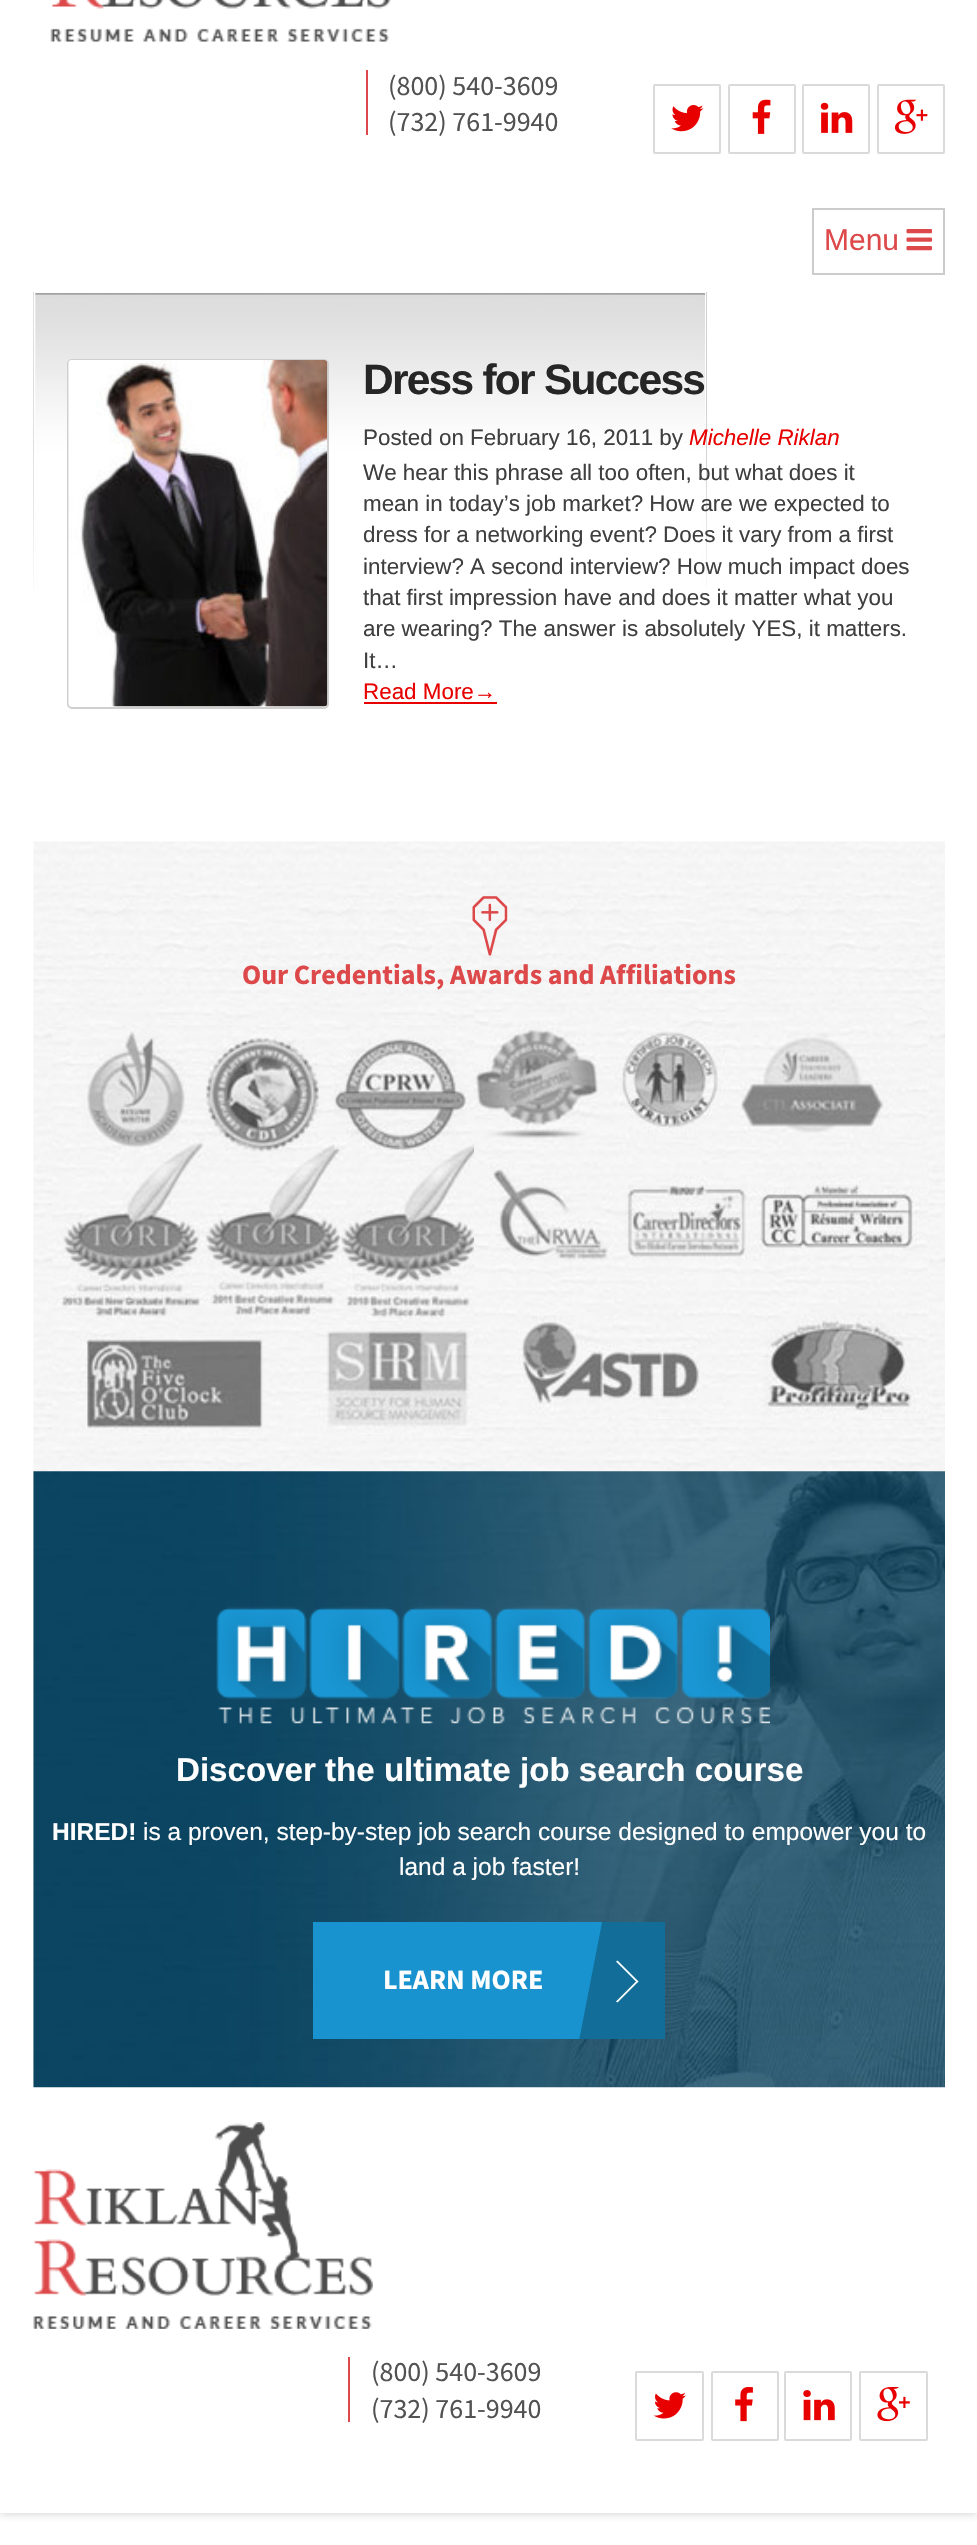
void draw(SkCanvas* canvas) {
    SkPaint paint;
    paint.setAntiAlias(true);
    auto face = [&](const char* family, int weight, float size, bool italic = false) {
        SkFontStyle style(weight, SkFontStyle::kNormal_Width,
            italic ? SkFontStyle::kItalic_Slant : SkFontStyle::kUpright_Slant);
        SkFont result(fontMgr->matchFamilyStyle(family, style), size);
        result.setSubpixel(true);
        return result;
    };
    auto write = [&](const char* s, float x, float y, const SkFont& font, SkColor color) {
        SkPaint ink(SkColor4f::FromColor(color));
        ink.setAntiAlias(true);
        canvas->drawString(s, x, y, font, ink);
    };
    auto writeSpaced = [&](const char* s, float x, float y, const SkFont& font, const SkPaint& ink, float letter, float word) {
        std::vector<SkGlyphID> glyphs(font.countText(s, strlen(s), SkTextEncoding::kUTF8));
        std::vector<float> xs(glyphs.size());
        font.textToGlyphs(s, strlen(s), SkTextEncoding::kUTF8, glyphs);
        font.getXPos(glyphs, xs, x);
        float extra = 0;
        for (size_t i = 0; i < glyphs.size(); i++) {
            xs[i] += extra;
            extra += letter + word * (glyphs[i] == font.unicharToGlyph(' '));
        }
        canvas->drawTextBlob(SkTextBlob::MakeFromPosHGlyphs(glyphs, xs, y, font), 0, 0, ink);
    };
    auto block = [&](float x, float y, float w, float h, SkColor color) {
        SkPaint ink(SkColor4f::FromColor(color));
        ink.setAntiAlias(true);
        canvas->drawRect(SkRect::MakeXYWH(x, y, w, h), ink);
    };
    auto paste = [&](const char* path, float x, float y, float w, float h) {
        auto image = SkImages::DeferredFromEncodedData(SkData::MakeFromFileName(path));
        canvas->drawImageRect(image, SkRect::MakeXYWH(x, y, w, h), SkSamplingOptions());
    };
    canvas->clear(SK_ColorWHITE);
    canvas->save();
    canvas->clipRect(SkRect::MakeXYWH(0, 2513, 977, 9));
    paint.setColor(SkColorSetRGB(204, 204, 204));
    paint.setMaskFilter(SkMaskFilter::MakeBlur(kNormal_SkBlurStyle, 4.5f));
    canvas->drawRect(SkRect::MakeXYWH(0, -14, 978, 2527), paint);
    paint.setMaskFilter(nullptr);
    canvas->restore();
    paste("pic1.png", 50, 0, 341, 42);
    block(366, 70, 2, 65, SkColorSetRGB(221, 73, 74));
    auto kFont1 = face("Source Sans Pro", 400, 28);
    write("(800) 540-3609", 388, 95, kFont1, SkColorSetRGB(82, 82, 82));
    write("(732) 761-9940", 388, 131, kFont1, SkColorSetRGB(82, 82, 82));
    paint.setStyle(SkPaint::kStroke_Style);
    paint.setStrokeWidth(2);
    paint.setColor(SkColorSetRGB(218, 218, 218));
    canvas->drawRoundRect(SkRect::MakeXYWH(654, 85, 66, 68), 1, 1, paint);
    paste("pic2.png", 671, 105, 33, 27);
    canvas->drawRoundRect(SkRect::MakeXYWH(729, 85, 66, 68), 1, 1, paint);
    paste("pic3.png", 752, 99, 19, 35);
    canvas->drawRoundRect(SkRect::MakeXYWH(803, 85, 66, 68), 1, 1, paint);
    paste("pic4.png", 820, 102, 33, 31);
    canvas->drawRoundRect(SkRect::MakeXYWH(878, 85, 66, 68), 1, 1, paint);
    paste("pic5.png", 894, 99, 34, 35);
    paint.setColor(SkColorSetRGB(204, 204, 204));
    canvas->drawRect(SkRect::MakeXYWH(813, 209, 131, 65), paint);
    auto kFont2 = face("Liberation Sans", 400, 30);
    write("Menu", 824, 250, kFont2, SkColorSetRGB(221, 73, 74));
    paste("pic6.png", 906, 229, 26, 22);
    paste("pic7.png", 33, 292, 674, 298);
    paint.setColor(SkColorSetRGB(207, 207, 207));
    canvas->drawRoundRect(SkRect::MakeXYWH(68, 360, 260, 348), 4, 4, paint);
    paste("pic8.png", 68, 360, 260, 347);
    auto kFont3 = face("Liberation Sans", 700, 42.5f);
    paint.setStyle(SkPaint::kFill_Style);
    paint.setColor(SkColorSetRGB(38, 38, 38));
    writeSpaced("Dress for Success", 363, 394, kFont3, paint, -1.75f, 0);
    auto kFont4 = face("Liberation Sans", 400, 22.4f);
    write("Posted on February 16, 2011 by", 363, 445, kFont4, SkColorSetRGB(63, 63, 63));
    auto kFont5 = face("Liberation Sans", 400, 22.4f, true);
    write("Michelle Riklan", 689, 445, kFont5, SkColorSetRGB(232, 0, 0));
    write("We hear this phrase all too often, but what does it", 363, 480, kFont4, SkColorSetRGB(63, 63, 63));
    write("mean in today’s job market? How are we expected to", 363, 511, kFont4, SkColorSetRGB(63, 63, 63));
    write("dress for a networking event? Does it vary from a first", 363, 542, kFont4, SkColorSetRGB(63, 63, 63));
    write("interview? A second interview? How much impact does", 363, 574, kFont4, SkColorSetRGB(63, 63, 63));
    write("that first impression have and does it matter what you", 363, 605, kFont4, SkColorSetRGB(63, 63, 63));
    write("are wearing? The answer is absolutely YES, it matters.", 363, 636, kFont4, SkColorSetRGB(63, 63, 63));
    write("It…", 363, 668, kFont4, SkColorSetRGB(63, 63, 63));
    write("Read More→", 363, 699, kFont4, SkColorSetRGB(232, 0, 0));
    block(364, 702, 133, 2, SkColorSetRGB(232, 0, 0));
    paste("pic9.png", 33, 841, 912, 630);
    paste("pic10.png", 472, 896, 36, 60);
    auto kFont6 = face("Source Sans Pro", 700, 28);
    write("Our Credentials, Awards and Affiliations", 242, 984, kFont6, SkColorSetRGB(221, 73, 74));
    paste("pic11.png", 52, 1025, 423, 411);
    paste("pic12.png", 474, 1007, 454, 412);
    paste("pic13.png", 33, 1471, 912, 617);
    paste("pic14.png", 216, 1605, 554, 119);
    auto kFont7 = face("Liberation Sans", 700, 33.1f);
    write("Discover the ultimate job search course", 176, 1781, kFont7, SK_ColorWHITE);
    auto kFont8 = face("Liberation Sans", 700, 24.5f);
    write("HIRED!", 52, 1840, kFont8, SK_ColorWHITE);
    auto kFont9 = face("Liberation Sans", 400, 24.5f);
    write("is a proven, step-by-step job search course designed to empower you to", 143, 1840, kFont9, SK_ColorWHITE);
    write("land a job faster!", 399, 1875, kFont9, SK_ColorWHITE);
    block(313, 1922, 290, 117, SkColorSetRGB(24, 147, 207));
    write("LEARN MORE", 383, 1989, kFont6, SK_ColorWHITE);
    canvas->save();
    canvas->clipRect(SkRect::MakeXYWH(313, 1922, 352, 117));
    paint.setColor(SkColorSetRGB(18, 109, 153));
    canvas->drawPath(SkPathBuilder().moveTo(779, 1012).lineTo(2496, 1346).lineTo(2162, 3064).lineTo(445, 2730).close().detach(), paint);
    canvas->restore();
    paint.setColor(SK_ColorWHITE);
    canvas->drawPath(SkPathBuilder().moveTo(616, 1961.5f).lineTo(617.5f, 1960.5f).lineTo(638.5f, 1981.5f).lineTo(637, 1982.5f).close().detach(), paint);
    canvas->drawPath(SkPathBuilder().moveTo(616, 2001.5f).lineTo(637, 1980.5f).lineTo(638.5f, 1981.5f).lineTo(617.5f, 2002.5f).close().detach(), paint);
    paste("pic15.png", 33, 2122, 340, 207);
    block(348, 2357, 2, 65, SkColorSetRGB(221, 73, 74));
    write("(800) 540-3609", 371, 2381, kFont1, SkColorSetRGB(82, 82, 82));
    write("(732) 761-9940", 371, 2418, kFont1, SkColorSetRGB(82, 82, 82));
    paint.setStyle(SkPaint::kStroke_Style);
    paint.setColor(SkColorSetRGB(218, 218, 218));
    canvas->drawRoundRect(SkRect::MakeXYWH(636, 2372, 67, 68), 1, 1, paint);
    paste("pic16.png", 653, 2392, 33, 27);
    canvas->drawRoundRect(SkRect::MakeXYWH(712, 2372, 66, 68), 1, 1, paint);
    paste("pic17.png", 735, 2387, 18, 35);
    canvas->drawRoundRect(SkRect::MakeXYWH(785, 2372, 66, 68), 1, 1, paint);
    paste("pic18.png", 803, 2390, 32, 31);
    canvas->drawRoundRect(SkRect::MakeXYWH(860, 2372, 67, 68), 1, 1, paint);
    paste("pic19.png", 877, 2387, 33, 35);
}
